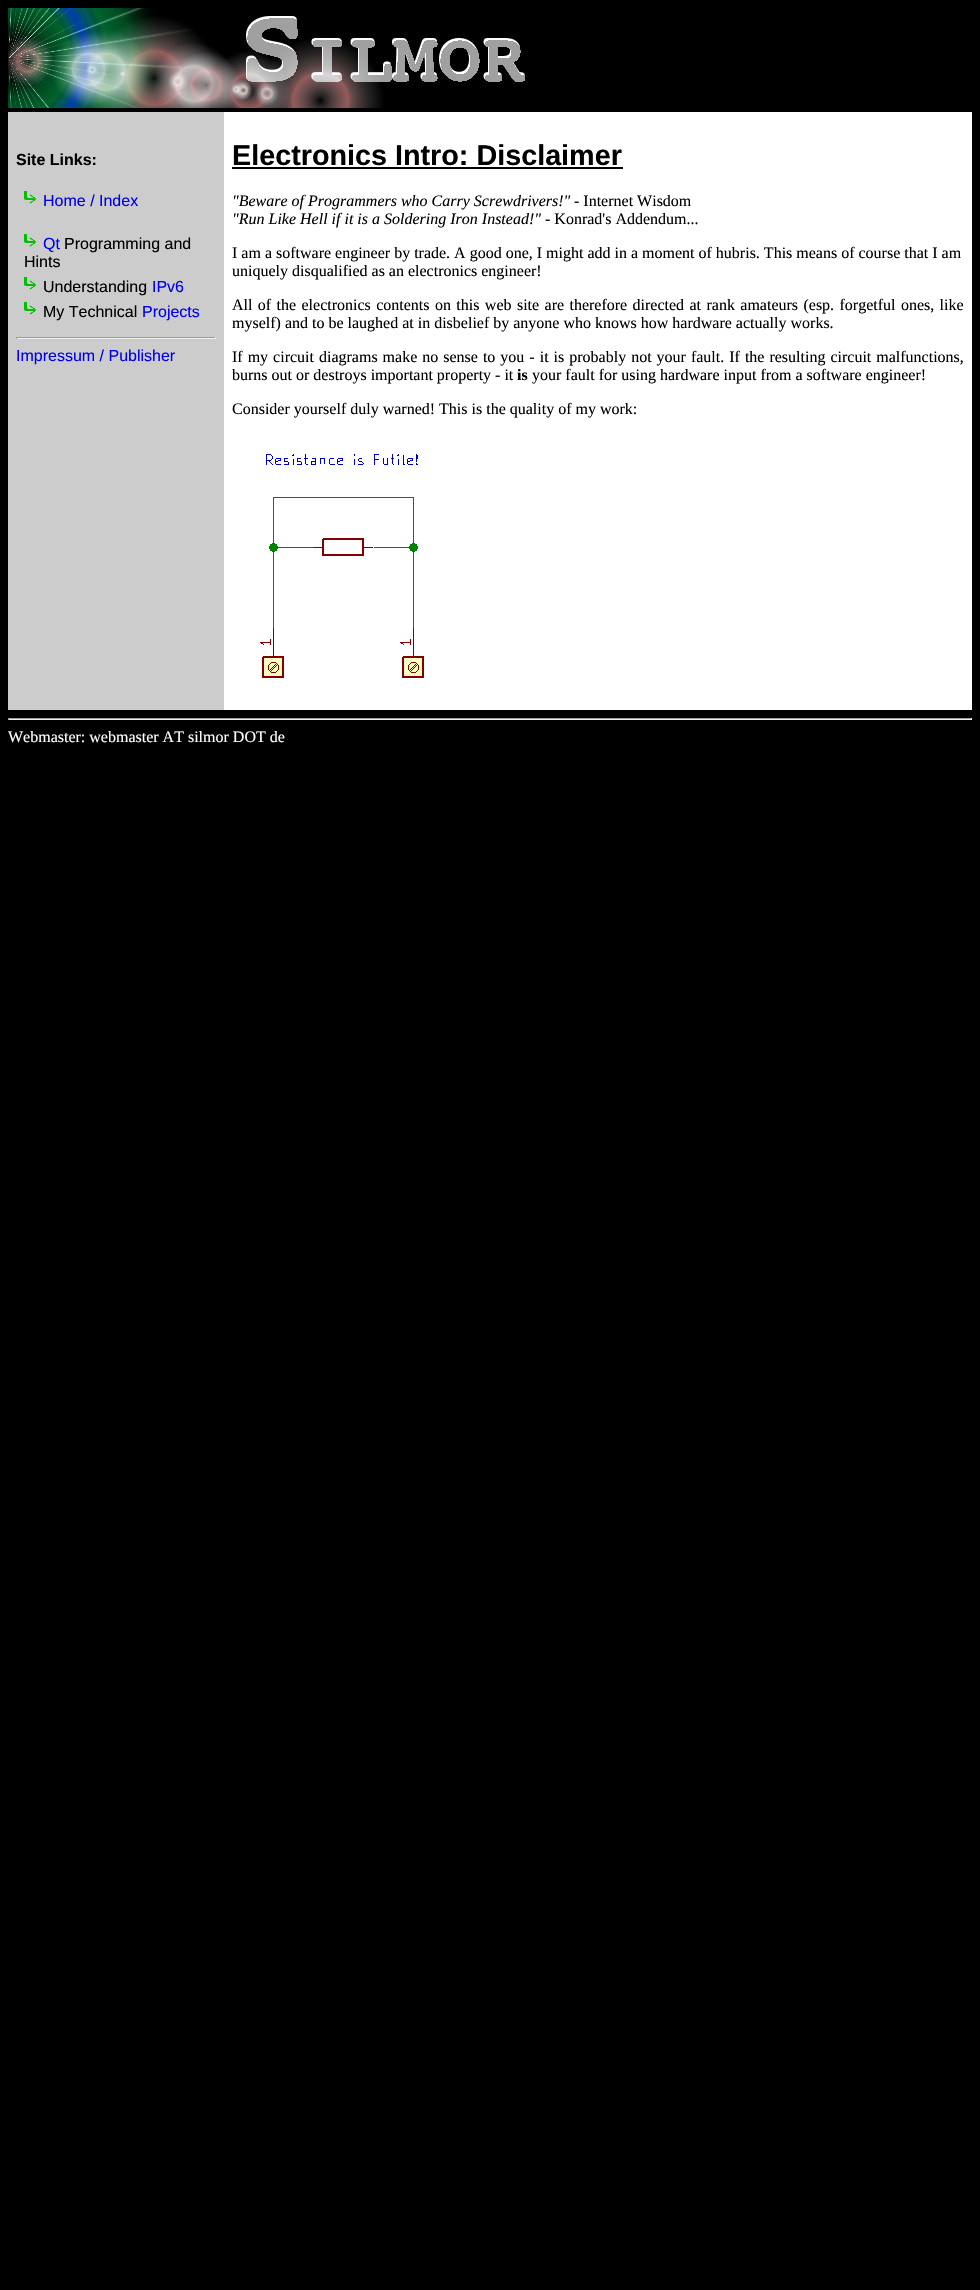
void draw(SkCanvas* canvas) {
    SkPaint paint;
    paint.setAntiAlias(true);
    auto face = [&](const char* family, int weight, float size, bool italic = false) {
        SkFontStyle style(weight, SkFontStyle::kNormal_Width,
            italic ? SkFontStyle::kItalic_Slant : SkFontStyle::kUpright_Slant);
        SkFont result(fontMgr->matchFamilyStyle(family, style), size);
        result.setSubpixel(true);
        return result;
    };
    auto write = [&](const char* s, float x, float y, const SkFont& font, SkColor color) {
        SkPaint ink(SkColor4f::FromColor(color));
        ink.setAntiAlias(true);
        canvas->drawString(s, x, y, font, ink);
    };
    auto writeSpaced = [&](const char* s, float x, float y, const SkFont& font, const SkPaint& ink, float letter, float word) {
        std::vector<SkGlyphID> glyphs(font.countText(s, strlen(s), SkTextEncoding::kUTF8));
        std::vector<float> xs(glyphs.size());
        font.textToGlyphs(s, strlen(s), SkTextEncoding::kUTF8, glyphs);
        font.getXPos(glyphs, xs, x);
        float extra = 0;
        for (size_t i = 0; i < glyphs.size(); i++) {
            xs[i] += extra;
            extra += letter + word * (glyphs[i] == font.unicharToGlyph(' '));
        }
        canvas->drawTextBlob(SkTextBlob::MakeFromPosHGlyphs(glyphs, xs, y, font), 0, 0, ink);
    };
    auto block = [&](float x, float y, float w, float h, SkColor color) {
        SkPaint ink(SkColor4f::FromColor(color));
        ink.setAntiAlias(true);
        canvas->drawRect(SkRect::MakeXYWH(x, y, w, h), ink);
    };
    auto paste = [&](const char* path, float x, float y, float w, float h) {
        auto image = SkImages::DeferredFromEncodedData(SkData::MakeFromFileName(path));
        canvas->drawImageRect(image, SkRect::MakeXYWH(x, y, w, h), SkSamplingOptions());
    };
    canvas->clear(SK_ColorBLACK);
    paste("pic1.png", 8, 8, 520, 100);
    block(8, 112, 216, 598, SkColorSetRGB(204, 204, 204));
    auto kFont1 = face("Liberation Sans", 700, 16);
    write("Site Links:", 16, 165, kFont1, SK_ColorBLACK);
    paste("pic2.png", 24, 191, 12, 13);
    auto kFont2 = face("Liberation Sans", 400, 16);
    write("Home / Index", 43, 206, kFont2, SkColorSetRGB(0, 0, 238));
    paste("pic2.png", 24, 234, 12, 13);
    write("Qt", 43, 249, kFont2, SkColorSetRGB(0, 0, 238));
    write("Programming and", 64, 249, kFont2, SK_ColorBLACK);
    write("Hints", 24, 267, kFont2, SK_ColorBLACK);
    paste("pic2.png", 24, 277, 12, 13);
    write("Understanding", 43, 292, kFont2, SK_ColorBLACK);
    write("IPv6", 152, 292, kFont2, SkColorSetRGB(0, 0, 238));
    paste("pic2.png", 24, 302, 12, 13);
    write("My Technical", 43, 317, kFont2, SK_ColorBLACK);
    write("Projects", 142, 317, kFont2, SkColorSetRGB(0, 0, 238));
    block(16, 337, 200, 1, SkColorSetRGB(159, 159, 159));
    block(215, 337, 1, 2, SkColorSetRGB(238, 238, 238));
    block(16, 338, 200, 1, SkColorSetRGB(238, 238, 238));
    block(16, 337, 1, 2, SkColorSetRGB(159, 159, 159));
    write("Impressum / Publisher", 16, 361, kFont2, SkColorSetRGB(0, 0, 238));
    block(224, 112, 748, 598, SK_ColorWHITE);
    auto kFont3 = face("Liberation Sans", 700, 28.75f);
    write("Electronics Intro: Disclaimer", 232, 165, kFont3, SK_ColorBLACK);
    block(232, 167, 391, 2, SK_ColorBLACK);
    auto kFont4 = face("Liberation Serif", 400, 16, true);
    write("\"Beware of Programmers who Carry Screwdrivers!\"", 232, 206, kFont4, SK_ColorBLACK);
    auto kFont5 = face("Liberation Serif", 400, 16);
    write("- Internet Wisdom", 574, 206, kFont5, SK_ColorBLACK);
    write("\"Run Like Hell if it is a Soldering Iron Instead!\"", 232, 224, kFont4, SK_ColorBLACK);
    write("- Konrad's Addendum...", 545, 224, kFont5, SK_ColorBLACK);
    write("I am a software engineer by trade. A good one, I might add in a moment of hubris. This means of course that I am", 232, 258, kFont5, SK_ColorBLACK);
    write("uniquely disqualified as an electronics engineer!", 232, 276, kFont5, SK_ColorBLACK);
    paint.setColor(SK_ColorBLACK);
    writeSpaced("All of the electronics contents on this web site are therefore directed at rank amateurs (esp. forgetful ones, like", 232, 310, kFont5, paint, 0, 1.4f);
    write("myself) and to be laughed at in disbelief by anyone who knows how hardware actually works.", 232, 328, kFont5, SK_ColorBLACK);
    writeSpaced("If my circuit diagrams make no sense to you - it is probably not your fault. If the resulting circuit malfunctions,", 232, 362, kFont5, paint, 0, 1);
    write("burns out or destroys important property - it", 232, 380, kFont5, SK_ColorBLACK);
    auto kFont6 = face("Liberation Serif", 700, 16);
    write("is", 517, 380, kFont6, SK_ColorBLACK);
    write("your fault for using hardware input from a software engineer!", 532, 380, kFont5, SK_ColorBLACK);
    write("Consider yourself duly warned! This is the quality of my work:", 232, 414, kFont5, SK_ColorBLACK);
    paste("pic3.png", 260, 454, 164, 224);
    block(8, 718, 964, 1, SkColorSetRGB(159, 159, 159));
    block(971, 718, 1, 2, SkColorSetRGB(238, 238, 238));
    block(8, 719, 964, 1, SkColorSetRGB(238, 238, 238));
    block(8, 718, 1, 2, SkColorSetRGB(159, 159, 159));
    write("Webmaster: webmaster AT silmor DOT de", 8, 742, kFont5, SK_ColorWHITE);
}
